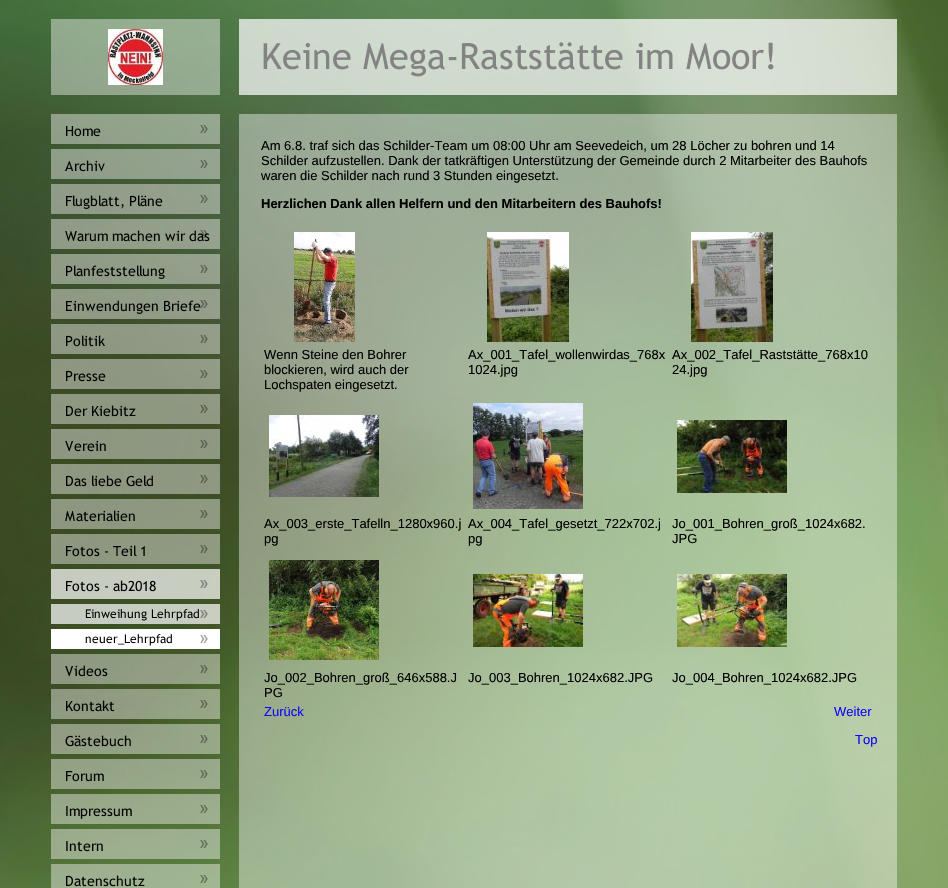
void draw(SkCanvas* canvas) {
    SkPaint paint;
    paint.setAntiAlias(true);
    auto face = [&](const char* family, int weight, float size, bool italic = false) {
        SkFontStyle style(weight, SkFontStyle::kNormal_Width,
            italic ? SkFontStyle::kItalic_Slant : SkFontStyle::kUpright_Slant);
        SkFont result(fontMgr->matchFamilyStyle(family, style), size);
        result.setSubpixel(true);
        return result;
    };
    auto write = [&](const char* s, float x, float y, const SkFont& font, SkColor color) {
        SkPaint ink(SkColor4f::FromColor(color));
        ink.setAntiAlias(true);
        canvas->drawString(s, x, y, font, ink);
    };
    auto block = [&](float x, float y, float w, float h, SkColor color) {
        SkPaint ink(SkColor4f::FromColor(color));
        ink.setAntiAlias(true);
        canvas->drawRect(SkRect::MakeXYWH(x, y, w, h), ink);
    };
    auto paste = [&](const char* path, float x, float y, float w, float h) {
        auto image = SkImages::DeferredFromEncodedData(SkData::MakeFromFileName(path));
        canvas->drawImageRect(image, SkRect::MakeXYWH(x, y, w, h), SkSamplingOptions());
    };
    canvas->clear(SK_ColorWHITE);
    paste("pic1.png", 0, 0, 948, 888);
    block(51, 19, 169, 76, SkColorSetARGB(105, 255, 255, 255));
    paste("pic2.png", 108, 29, 55, 56);
    block(239, 19, 658, 76, SkColorSetARGB(181, 255, 255, 255));
    paste("pic3.png", 263, 42, 511, 35);
    paste("pic4.png", 51, 114, 169, 30);
    paste("pic5.png", 51, 149, 169, 30);
    paste("pic6.png", 51, 184, 169, 30);
    paste("pic7.png", 51, 219, 169, 30);
    paste("pic8.png", 51, 254, 169, 30);
    paste("pic9.png", 51, 289, 169, 30);
    paste("pic10.png", 51, 324, 169, 30);
    paste("pic11.png", 51, 359, 169, 30);
    paste("pic12.png", 51, 394, 169, 30);
    paste("pic13.png", 51, 429, 169, 30);
    paste("pic14.png", 51, 464, 169, 30);
    paste("pic15.png", 51, 499, 169, 30);
    paste("pic16.png", 51, 534, 169, 30);
    paste("pic17.png", 51, 569, 169, 30);
    paste("pic18.png", 51, 604, 169, 20);
    paste("pic19.png", 51, 629, 169, 20);
    paste("pic20.png", 51, 654, 169, 30);
    paste("pic21.png", 51, 689, 169, 30);
    paste("pic22.png", 51, 724, 169, 30);
    paste("pic23.png", 51, 759, 169, 30);
    paste("pic24.png", 51, 794, 169, 30);
    paste("pic25.png", 51, 829, 169, 30);
    paste("pic26.png", 51, 864, 169, 24);
    block(239, 114, 658, 774, SkColorSetARGB(105, 255, 255, 255));
    auto kFont1 = face("Liberation Sans", 400, 13);
    write("Am 6.8. traf sich das Schilder-Team um 08:00 Uhr am Seevedeich, um 28 Löcher zu bohren und 14", 261, 150, kFont1, SK_ColorBLACK);
    write("Schilder aufzustellen. Dank der tatkräftigen Unterstützung der Gemeinde durch 2 Mitarbeiter des Bauhofs", 261, 165, kFont1, SK_ColorBLACK);
    write("waren die Schilder nach rund 3 Stunden eingesetzt.", 261, 180, kFont1, SK_ColorBLACK);
    auto kFont2 = face("Liberation Sans", 700, 13);
    write("Herzlichen Dank allen Helfern und den Mitarbeitern des Bauhofs!", 261, 208, kFont2, SK_ColorBLACK);
    paste("pic27.png", 294, 232, 61, 110);
    write("Wenn Steine den Bohrer", 264, 359, kFont1, SK_ColorBLACK);
    write("blockieren, wird auch der", 264, 374, kFont1, SK_ColorBLACK);
    write("Lochspaten eingesetzt.", 264, 389, kFont1, SK_ColorBLACK);
    paste("pic28.png", 487, 232, 82, 110);
    write("Ax_001_Tafel_wollenwirdas_768x", 468, 359, kFont1, SK_ColorBLACK);
    write("1024.jpg", 468, 374, kFont1, SK_ColorBLACK);
    paste("pic29.png", 691, 232, 82, 110);
    write("Ax_002_Tafel_Raststätte_768x10", 672, 359, kFont1, SK_ColorBLACK);
    write("24.jpg", 672, 374, kFont1, SK_ColorBLACK);
    paste("pic30.png", 269, 415, 110, 82);
    write("Ax_003_erste_Tafelln_1280x960.j", 264, 528, kFont1, SK_ColorBLACK);
    write("pg", 264, 543, kFont1, SK_ColorBLACK);
    paste("pic31.png", 473, 403, 110, 106);
    write("Ax_004_Tafel_gesetzt_722x702.j", 468, 528, kFont1, SK_ColorBLACK);
    write("pg", 468, 543, kFont1, SK_ColorBLACK);
    paste("pic32.png", 677, 420, 110, 73);
    write("Jo_001_Bohren_groß_1024x682.", 672, 528, kFont1, SK_ColorBLACK);
    write("JPG", 672, 543, kFont1, SK_ColorBLACK);
    paste("pic33.png", 269, 560, 110, 100);
    write("Jo_002_Bohren_groß_646x588.J", 264, 682, kFont1, SK_ColorBLACK);
    write("PG", 264, 697, kFont1, SK_ColorBLACK);
    paste("pic34.png", 473, 574, 110, 73);
    write("Jo_003_Bohren_1024x682.JPG", 468, 682, kFont1, SK_ColorBLACK);
    paste("pic35.png", 677, 574, 110, 73);
    write("Jo_004_Bohren_1024x682.JPG", 672, 682, kFont1, SK_ColorBLACK);
    write("Zurück", 264, 716, kFont1, SkColorSetRGB(19, 7, 248));
    write("Weiter", 834, 716, kFont1, SkColorSetRGB(19, 7, 248));
    write("Top", 855, 744, kFont1, SkColorSetRGB(19, 7, 248));
}
